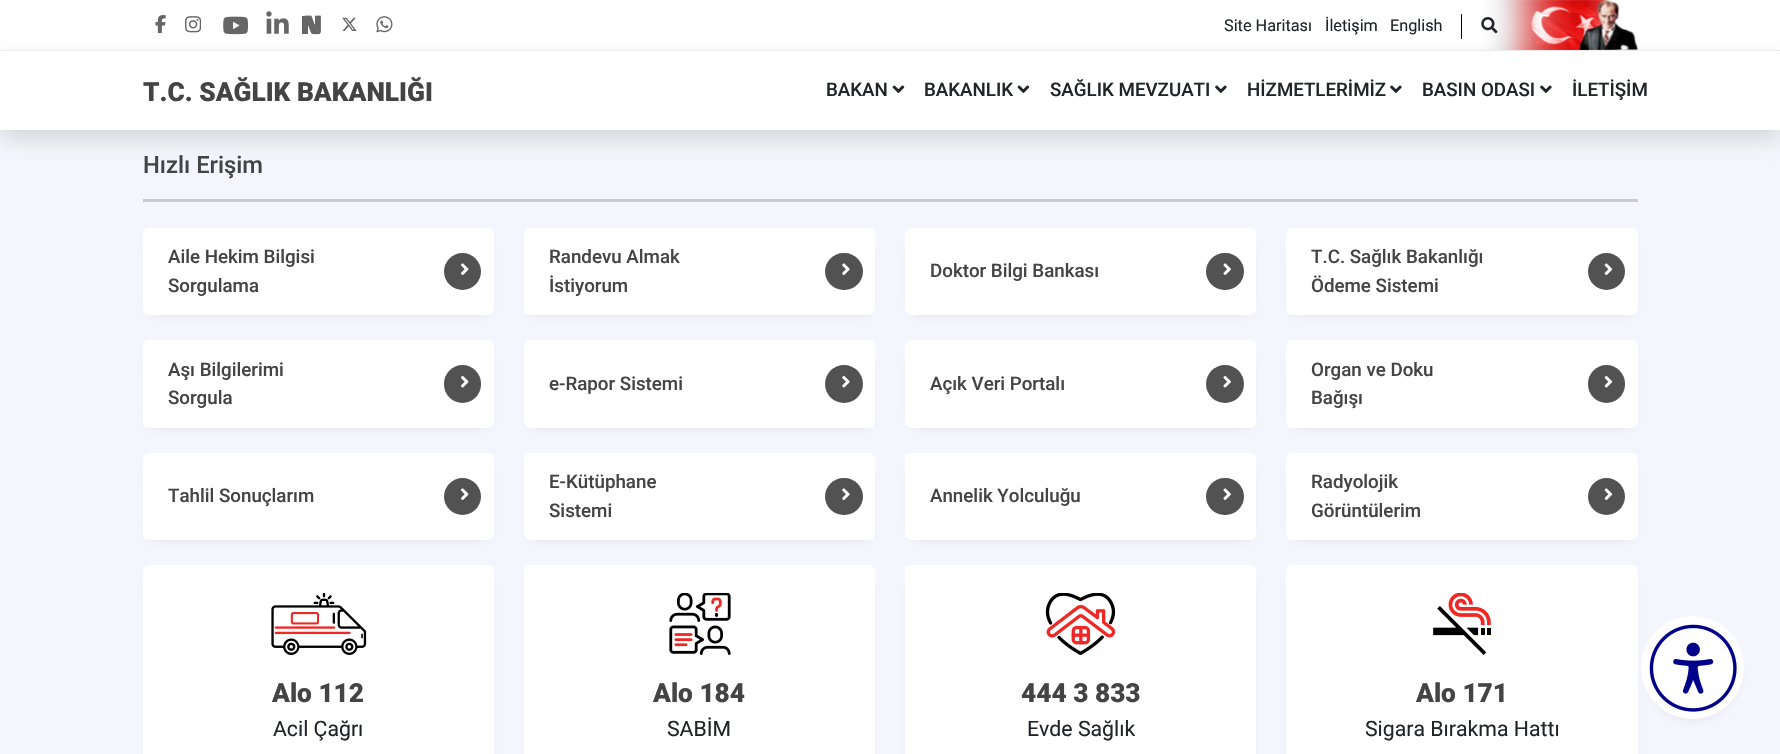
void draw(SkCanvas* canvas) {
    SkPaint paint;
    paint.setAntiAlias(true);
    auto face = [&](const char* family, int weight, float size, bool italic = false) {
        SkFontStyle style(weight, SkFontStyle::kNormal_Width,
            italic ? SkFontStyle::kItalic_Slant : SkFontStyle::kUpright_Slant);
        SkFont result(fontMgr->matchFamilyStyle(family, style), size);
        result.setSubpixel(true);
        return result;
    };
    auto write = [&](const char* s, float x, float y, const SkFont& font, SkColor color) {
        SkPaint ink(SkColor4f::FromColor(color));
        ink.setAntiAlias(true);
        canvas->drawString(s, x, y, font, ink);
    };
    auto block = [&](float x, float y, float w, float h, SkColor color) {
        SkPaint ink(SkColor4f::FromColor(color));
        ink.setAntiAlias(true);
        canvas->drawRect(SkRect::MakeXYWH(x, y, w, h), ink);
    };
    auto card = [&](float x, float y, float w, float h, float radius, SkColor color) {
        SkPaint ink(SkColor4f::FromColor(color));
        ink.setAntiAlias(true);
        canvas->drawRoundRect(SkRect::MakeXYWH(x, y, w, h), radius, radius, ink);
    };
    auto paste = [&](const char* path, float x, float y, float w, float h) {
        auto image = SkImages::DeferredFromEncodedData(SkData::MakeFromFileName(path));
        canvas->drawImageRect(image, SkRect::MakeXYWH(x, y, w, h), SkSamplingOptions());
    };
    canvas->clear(SkColorSetRGB(245, 246, 253));
    block(0, 0, 1780, 50, SK_ColorWHITE);
    paint.setColor(SkColorSetARGB(140, 189, 189, 189));
    paint.setMaskFilter(SkMaskFilter::MakeBlur(kNormal_SkBlurStyle, 10));
    canvas->drawRect(SkRect::MakeXYWH(0, 60, 1780, 80), paint);
    paint.setMaskFilter(nullptr);
    paste("pic1.png", 155, 15, 11, 18);
    paste("pic2.png", 185, 16, 16, 17);
    paste("pic3.png", 223, 16, 26, 19);
    paste("pic4.png", 266, 11, 23, 23);
    paste("pic5.png", 302, 15, 19, 20);
    paste("pic6.png", 342, 17, 15, 14);
    paste("pic7.png", 376, 16, 17, 17);
    auto kFont1 = face("Roboto", 400, 16.25f);
    write("Site Haritası", 1224, 31, kFont1, SkColorSetRGB(33, 37, 41));
    write("İletişim", 1325, 31, kFont1, SkColorSetRGB(33, 37, 41));
    write("English", 1390, 31, kFont1, SkColorSetRGB(33, 37, 41));
    block(1461, 14, 1, 25, SK_ColorBLACK);
    paste("pic9.png", 1484, 0, 154, 50);
    paste("pic8.png", 1481, 17, 17, 17);
    block(0, 51, 1780, 79, SK_ColorWHITE);
    block(0, 50, 1780, 1, SkColorSetRGB(236, 234, 234));
    auto kFont2 = face("Roboto", 900, 26.25f);
    write("T.C. SAĞLIK BAKANLIĞI", 143, 101, kFont2, SkColorSetRGB(68, 68, 68));
    auto kFont3 = face("Roboto", 500, 18.75f);
    write("BAKAN", 826, 96, kFont3, SkColorSetRGB(33, 37, 41));
    paste("pic10.png", 892, 85, 13, 8);
    write("BAKANLIK", 924, 96, kFont3, SkColorSetRGB(33, 37, 41));
    paste("pic10.png", 1017, 85, 13, 8);
    write("SAĞLIK MEVZUATI", 1050, 96, kFont3, SkColorSetRGB(33, 37, 41));
    paste("pic11.png", 1215, 85, 12, 8);
    write("HİZMETLERİMİZ", 1247, 96, kFont3, SkColorSetRGB(33, 37, 41));
    paste("pic11.png", 1390, 85, 12, 8);
    write("BASIN ODASI", 1422, 96, kFont3, SkColorSetRGB(33, 37, 41));
    paste("pic11.png", 1540, 85, 12, 8);
    write("İLETİŞİM", 1572, 96, kFont3, SkColorSetRGB(33, 37, 41));
    block(143, 199, 1495, 3, SkColorSetRGB(202, 202, 202));
    auto kFont4 = face("Roboto", 500, 23.75f);
    write("Hızlı Erişim", 143, 173, kFont4, SkColorSetRGB(68, 68, 68));
    paint.setColor(SkColorSetARGB(102, 143, 143, 163));
    paint.setMaskFilter(SkMaskFilter::MakeBlur(kNormal_SkBlurStyle, 7));
    canvas->drawRect(SkRect::MakeXYWH(153, 245, 331, 66), paint);
    paint.setMaskFilter(nullptr);
    card(143, 228, 351, 87, 6, SK_ColorWHITE);
    write("Aile Hekim Bilgisi", 168, 263, kFont3, SkColorSetRGB(68, 68, 68));
    write("Sorgulama", 168, 292, kFont3, SkColorSetRGB(68, 68, 68));
    paint.setColor(SkColorSetRGB(82, 82, 82));
    canvas->drawCircle(462.5f, 271.5f, 18.5f, paint);
    paste("pic12.png", 461, 263, 8, 12);
    paint.setColor(SkColorSetARGB(102, 143, 143, 163));
    paint.setMaskFilter(SkMaskFilter::MakeBlur(kNormal_SkBlurStyle, 7));
    canvas->drawRect(SkRect::MakeXYWH(534, 245, 331, 66), paint);
    paint.setMaskFilter(nullptr);
    card(524, 228, 351, 87, 6, SK_ColorWHITE);
    write("Randevu Almak", 549, 263, kFont3, SkColorSetRGB(68, 68, 68));
    write("İstiyorum", 549, 292, kFont3, SkColorSetRGB(68, 68, 68));
    card(825, 253, 38, 37, 18.5f, SkColorSetRGB(82, 82, 82));
    paste("pic13.png", 842, 263, 8, 12);
    paint.setMaskFilter(SkMaskFilter::MakeBlur(kNormal_SkBlurStyle, 7));
    canvas->drawRect(SkRect::MakeXYWH(915, 245, 331, 66), paint);
    paint.setMaskFilter(nullptr);
    card(905, 228, 351, 87, 6, SK_ColorWHITE);
    write("Doktor Bilgi Bankası", 930, 277, kFont3, SkColorSetRGB(68, 68, 68));
    card(1206, 253, 38, 37, 18.5f, SkColorSetRGB(82, 82, 82));
    paste("pic14.png", 1223, 263, 8, 12);
    paint.setMaskFilter(SkMaskFilter::MakeBlur(kNormal_SkBlurStyle, 7));
    canvas->drawRect(SkRect::MakeXYWH(1296, 245, 332, 66), paint);
    paint.setMaskFilter(nullptr);
    card(1286, 228, 352, 87, 6, SK_ColorWHITE);
    write("T.C. Sağlık Bakanlığı", 1311, 263, kFont3, SkColorSetRGB(68, 68, 68));
    write("Ödeme Sistemi", 1311, 292, kFont3, SkColorSetRGB(68, 68, 68));
    paint.setColor(SkColorSetRGB(82, 82, 82));
    canvas->drawCircle(1606.5f, 271.5f, 18.5f, paint);
    paste("pic15.png", 1604, 263, 9, 12);
    paint.setColor(SkColorSetARGB(102, 143, 143, 163));
    paint.setMaskFilter(SkMaskFilter::MakeBlur(kNormal_SkBlurStyle, 7));
    canvas->drawRect(SkRect::MakeXYWH(153, 358, 331, 66), paint);
    paint.setMaskFilter(nullptr);
    card(143, 340, 351, 88, 6, SK_ColorWHITE);
    write("Aşı Bilgilerimi", 168, 376, kFont3, SkColorSetRGB(68, 68, 68));
    write("Sorgula", 168, 404, kFont3, SkColorSetRGB(68, 68, 68));
    card(444, 365, 37, 38, 18.5f, SkColorSetRGB(82, 82, 82));
    paste("pic16.png", 461, 375, 8, 13);
    paint.setMaskFilter(SkMaskFilter::MakeBlur(kNormal_SkBlurStyle, 7));
    canvas->drawRect(SkRect::MakeXYWH(534, 358, 331, 66), paint);
    paint.setMaskFilter(nullptr);
    card(524, 340, 351, 88, 6, SK_ColorWHITE);
    write("e-Rapor Sistemi", 549, 390, kFont3, SkColorSetRGB(68, 68, 68));
    paint.setColor(SkColorSetRGB(82, 82, 82));
    canvas->drawCircle(844, 384, 19, paint);
    paste("pic17.png", 842, 375, 8, 13);
    paint.setColor(SkColorSetARGB(102, 143, 143, 163));
    paint.setMaskFilter(SkMaskFilter::MakeBlur(kNormal_SkBlurStyle, 7));
    canvas->drawRect(SkRect::MakeXYWH(915, 358, 331, 66), paint);
    paint.setMaskFilter(nullptr);
    card(905, 340, 351, 88, 6, SK_ColorWHITE);
    write("Açık Veri Portalı", 930, 390, kFont3, SkColorSetRGB(68, 68, 68));
    paint.setColor(SkColorSetRGB(82, 82, 82));
    canvas->drawCircle(1225, 384, 19, paint);
    paste("pic18.png", 1223, 375, 8, 13);
    paint.setColor(SkColorSetARGB(102, 143, 143, 163));
    paint.setMaskFilter(SkMaskFilter::MakeBlur(kNormal_SkBlurStyle, 7));
    canvas->drawRect(SkRect::MakeXYWH(1296, 358, 332, 66), paint);
    paint.setMaskFilter(nullptr);
    card(1286, 340, 352, 88, 6, SK_ColorWHITE);
    write("Organ ve Doku", 1311, 376, kFont3, SkColorSetRGB(68, 68, 68));
    write("Bağışı", 1311, 404, kFont3, SkColorSetRGB(68, 68, 68));
    card(1588, 365, 37, 38, 18.5f, SkColorSetRGB(82, 82, 82));
    paste("pic19.png", 1604, 375, 9, 13);
    paint.setMaskFilter(SkMaskFilter::MakeBlur(kNormal_SkBlurStyle, 7));
    canvas->drawRect(SkRect::MakeXYWH(153, 470, 331, 66), paint);
    paint.setMaskFilter(nullptr);
    card(143, 453, 351, 87, 6, SK_ColorWHITE);
    write("Tahlil Sonuçlarım", 168, 502, kFont3, SkColorSetRGB(68, 68, 68));
    paint.setColor(SkColorSetRGB(82, 82, 82));
    canvas->drawCircle(462.5f, 496.5f, 18.5f, paint);
    paste("pic12.png", 461, 488, 8, 12);
    paint.setColor(SkColorSetARGB(102, 143, 143, 163));
    paint.setMaskFilter(SkMaskFilter::MakeBlur(kNormal_SkBlurStyle, 7));
    canvas->drawRect(SkRect::MakeXYWH(534, 470, 331, 66), paint);
    paint.setMaskFilter(nullptr);
    card(524, 453, 351, 87, 6, SK_ColorWHITE);
    write("E-Kütüphane", 549, 488, kFont3, SkColorSetRGB(68, 68, 68));
    write("Sistemi", 549, 517, kFont3, SkColorSetRGB(68, 68, 68));
    card(825, 478, 38, 37, 18.5f, SkColorSetRGB(82, 82, 82));
    paste("pic13.png", 842, 488, 8, 12);
    paint.setMaskFilter(SkMaskFilter::MakeBlur(kNormal_SkBlurStyle, 7));
    canvas->drawRect(SkRect::MakeXYWH(915, 470, 331, 66), paint);
    paint.setMaskFilter(nullptr);
    card(905, 453, 351, 87, 6, SK_ColorWHITE);
    write("Annelik Yolculuğu", 930, 502, kFont3, SkColorSetRGB(68, 68, 68));
    card(1206, 478, 38, 37, 18.5f, SkColorSetRGB(82, 82, 82));
    paste("pic14.png", 1223, 488, 8, 12);
    paint.setMaskFilter(SkMaskFilter::MakeBlur(kNormal_SkBlurStyle, 7));
    canvas->drawRect(SkRect::MakeXYWH(1296, 470, 332, 66), paint);
    paint.setMaskFilter(nullptr);
    card(1286, 453, 352, 87, 6, SK_ColorWHITE);
    write("Radyolojik", 1311, 488, kFont3, SkColorSetRGB(68, 68, 68));
    write("Görüntülerim", 1311, 517, kFont3, SkColorSetRGB(68, 68, 68));
    paint.setColor(SkColorSetRGB(82, 82, 82));
    canvas->drawCircle(1606.5f, 496.5f, 18.5f, paint);
    paste("pic15.png", 1604, 488, 9, 12);
    paint.setColor(SkColorSetARGB(102, 143, 143, 163));
    paint.setMaskFilter(SkMaskFilter::MakeBlur(kNormal_SkBlurStyle, 7));
    canvas->drawRect(SkRect::MakeXYWH(153, 583, 331, 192), paint);
    paint.setMaskFilter(nullptr);
    card(143, 565, 351, 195, 6, SK_ColorWHITE);
    paste("pic20.png", 271, 593, 96, 62);
    write("Alo 112", 272, 702, kFont2, SkColorSetRGB(68, 68, 68));
    auto kFont5 = face("Roboto", 400, 21.25f);
    write("Acil Çağrı", 273, 736, kFont5, SkColorSetRGB(33, 37, 41));
    paint.setMaskFilter(SkMaskFilter::MakeBlur(kNormal_SkBlurStyle, 7));
    canvas->drawRect(SkRect::MakeXYWH(534, 583, 331, 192), paint);
    paint.setMaskFilter(nullptr);
    card(524, 565, 351, 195, 6, SK_ColorWHITE);
    paste("pic21.png", 669, 593, 62, 62);
    write("Alo 184", 653, 702, kFont2, SkColorSetRGB(68, 68, 68));
    write("SABİM", 667, 736, kFont5, SkColorSetRGB(33, 37, 41));
    paint.setMaskFilter(SkMaskFilter::MakeBlur(kNormal_SkBlurStyle, 7));
    canvas->drawRect(SkRect::MakeXYWH(915, 583, 331, 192), paint);
    paint.setMaskFilter(nullptr);
    card(905, 565, 351, 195, 6, SK_ColorWHITE);
    paste("pic22.png", 1045, 593, 71, 62);
    write("444 3 833", 1021, 702, kFont2, SkColorSetRGB(68, 68, 68));
    write("Evde Sağlık", 1027, 736, kFont5, SkColorSetRGB(33, 37, 41));
    paint.setMaskFilter(SkMaskFilter::MakeBlur(kNormal_SkBlurStyle, 7));
    canvas->drawRect(SkRect::MakeXYWH(1296, 583, 332, 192), paint);
    paint.setMaskFilter(nullptr);
    card(1286, 565, 352, 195, 6, SK_ColorWHITE);
    paste("pic23.png", 1433, 593, 58, 62);
    write("Alo 171", 1416, 702, kFont2, SkColorSetRGB(68, 68, 68));
    write("Sigara Bırakma Hattı", 1365, 736, kFont5, SkColorSetRGB(33, 37, 41));
    paint.setMaskFilter(SkMaskFilter::MakeBlur(kNormal_SkBlurStyle, 7.5f));
    canvas->drawRoundRect(SkRect::MakeXYWH(1653, 635, 80, 80), 40, 40, paint);
    paint.setMaskFilter(nullptr);
    paint.setColor(SK_ColorWHITE);
    canvas->drawCircle(1692.5f, 667.5f, 51.5f, paint);
    paste("pic24.png", 1649, 624, 88, 88);
}
